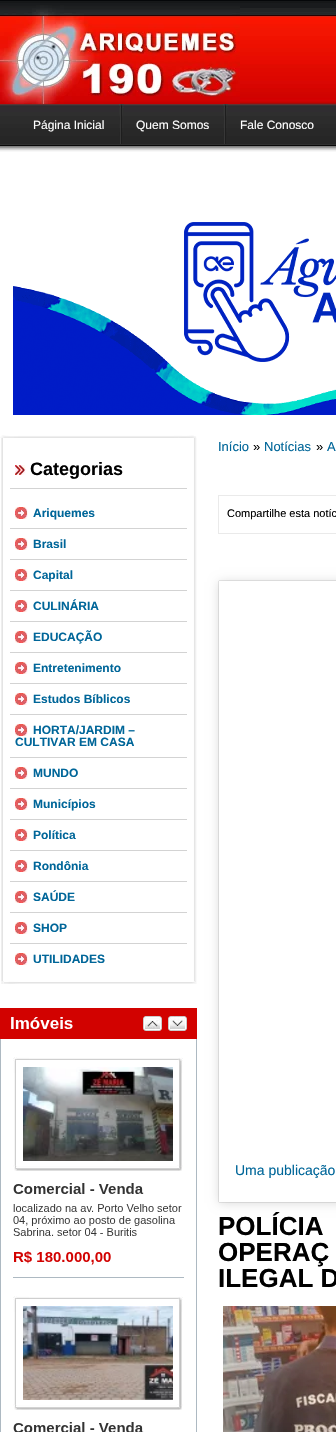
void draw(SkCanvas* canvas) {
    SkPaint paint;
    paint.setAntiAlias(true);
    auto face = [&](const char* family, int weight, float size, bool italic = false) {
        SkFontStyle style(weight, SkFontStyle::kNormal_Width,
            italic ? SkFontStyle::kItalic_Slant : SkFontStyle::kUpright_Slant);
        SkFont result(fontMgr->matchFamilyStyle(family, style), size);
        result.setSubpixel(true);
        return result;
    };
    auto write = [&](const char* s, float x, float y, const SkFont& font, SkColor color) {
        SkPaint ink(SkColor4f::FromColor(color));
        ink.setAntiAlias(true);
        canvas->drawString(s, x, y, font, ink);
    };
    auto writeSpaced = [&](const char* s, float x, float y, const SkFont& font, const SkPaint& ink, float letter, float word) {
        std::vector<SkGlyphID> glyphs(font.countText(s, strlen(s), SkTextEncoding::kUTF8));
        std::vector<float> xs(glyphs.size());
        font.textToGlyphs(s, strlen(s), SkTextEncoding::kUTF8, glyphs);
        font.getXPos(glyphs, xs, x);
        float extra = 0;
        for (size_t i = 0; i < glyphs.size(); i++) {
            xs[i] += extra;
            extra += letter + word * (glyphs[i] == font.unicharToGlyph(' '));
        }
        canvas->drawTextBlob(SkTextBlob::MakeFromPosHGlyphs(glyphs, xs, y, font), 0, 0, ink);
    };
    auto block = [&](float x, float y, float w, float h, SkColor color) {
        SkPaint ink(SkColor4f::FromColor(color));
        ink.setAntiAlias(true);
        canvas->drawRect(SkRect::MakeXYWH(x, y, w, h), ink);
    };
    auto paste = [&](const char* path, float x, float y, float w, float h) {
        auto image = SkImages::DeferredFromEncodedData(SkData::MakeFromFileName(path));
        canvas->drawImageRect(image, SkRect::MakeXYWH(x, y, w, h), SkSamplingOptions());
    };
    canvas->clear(SK_ColorWHITE);
    paste("pic1.png", 0, 0, 336, 152);
    paste("pic2.png", 0, 5, 240, 99);
    auto kFont1 = face("Liberation Sans", 400, 12);
    write("Página Inicial", 33, 129, kFont1, SK_ColorWHITE);
    paste("pic3.png", 119, 104, 5, 40);
    write("Quem Somos", 136, 129, kFont1, SK_ColorWHITE);
    paste("pic3.png", 223, 104, 5, 40);
    write("Fale Conosco", 240, 129, kFont1, SK_ColorWHITE);
    paste("pic4.png", 13, 222, 323, 193);
    paste("pic5.png", 1, 438, 196, 546);
    paste("pic6.png", 0, 435, 197, 3);
    paste("pic7.png", 15, 465, 11, 10);
    auto kFont2 = face("Liberation Sans", 700, 18);
    write("Categorias", 30, 475, kFont2, SK_ColorBLACK);
    block(10, 488, 177, 1, SkColorSetRGB(211, 211, 211));
    paste("pic8.png", 15, 507, 13, 12);
    auto kFont3 = face("Liberation Sans", 700, 12);
    write("Ariquemes", 33, 517, kFont3, SkColorSetRGB(0, 102, 153));
    block(10, 528, 177, 1, SkColorSetRGB(211, 211, 211));
    paste("pic8.png", 15, 538, 13, 12);
    write("Brasil", 33, 548, kFont3, SkColorSetRGB(0, 102, 153));
    block(10, 559, 177, 1, SkColorSetRGB(211, 211, 211));
    paste("pic8.png", 15, 569, 13, 12);
    write("Capital", 33, 579, kFont3, SkColorSetRGB(0, 102, 153));
    block(10, 590, 177, 1, SkColorSetRGB(211, 211, 211));
    paste("pic8.png", 15, 600, 13, 12);
    write("CULINÁRIA", 33, 610, kFont3, SkColorSetRGB(0, 102, 153));
    block(10, 621, 177, 1, SkColorSetRGB(211, 211, 211));
    paste("pic8.png", 15, 631, 13, 12);
    write("EDUCAÇÃO", 33, 641, kFont3, SkColorSetRGB(0, 102, 153));
    block(10, 652, 177, 1, SkColorSetRGB(211, 211, 211));
    paste("pic8.png", 15, 662, 13, 12);
    write("Entretenimento", 33, 672, kFont3, SkColorSetRGB(0, 102, 153));
    block(10, 683, 177, 1, SkColorSetRGB(211, 211, 211));
    paste("pic8.png", 15, 693, 13, 12);
    write("Estudos Bíblicos", 33, 703, kFont3, SkColorSetRGB(0, 102, 153));
    block(10, 714, 177, 1, SkColorSetRGB(211, 211, 211));
    paste("pic8.png", 15, 724, 13, 12);
    write("HORTA/JARDIM –", 33, 734, kFont3, SkColorSetRGB(0, 102, 153));
    write("CULTIVAR EM CASA", 15, 746, kFont3, SkColorSetRGB(0, 102, 153));
    block(10, 757, 177, 1, SkColorSetRGB(211, 211, 211));
    paste("pic8.png", 15, 767, 13, 12);
    write("MUNDO", 33, 777, kFont3, SkColorSetRGB(0, 102, 153));
    block(10, 788, 177, 1, SkColorSetRGB(211, 211, 211));
    paste("pic8.png", 15, 798, 13, 12);
    write("Municípios", 33, 808, kFont3, SkColorSetRGB(0, 102, 153));
    block(10, 819, 177, 1, SkColorSetRGB(211, 211, 211));
    paste("pic8.png", 15, 829, 13, 12);
    write("Política", 33, 839, kFont3, SkColorSetRGB(0, 102, 153));
    block(10, 850, 177, 1, SkColorSetRGB(211, 211, 211));
    paste("pic8.png", 15, 860, 13, 12);
    write("Rondônia", 33, 870, kFont3, SkColorSetRGB(0, 102, 153));
    block(10, 881, 177, 1, SkColorSetRGB(211, 211, 211));
    paste("pic8.png", 15, 891, 13, 12);
    write("SAÚDE", 33, 901, kFont3, SkColorSetRGB(0, 102, 153));
    block(10, 912, 177, 1, SkColorSetRGB(211, 211, 211));
    paste("pic8.png", 15, 922, 13, 12);
    write("SHOP", 33, 932, kFont3, SkColorSetRGB(0, 102, 153));
    block(10, 943, 177, 1, SkColorSetRGB(211, 211, 211));
    paste("pic8.png", 15, 953, 13, 12);
    write("UTILIDADES", 33, 963, kFont3, SkColorSetRGB(0, 102, 153));
    paste("pic9.png", 1, 981, 195, 3);
    paste("pic10.png", 0, 1008, 197, 424);
    auto kFont4 = face("Liberation Sans", 400, 13);
    write("Início", 218, 451, kFont4, SkColorSetRGB(0, 102, 153));
    write("»", 253, 451, kFont4, SK_ColorBLACK);
    write("Notícias", 264, 451, kFont4, SkColorSetRGB(0, 102, 153));
    write("»", 316, 451, kFont4, SK_ColorBLACK);
    write("A", 327, 451, kFont4, SkColorSetRGB(0, 102, 153));
    paint.setStyle(SkPaint::kStroke_Style);
    paint.setStrokeWidth(1);
    paint.setColor(SkColorSetRGB(234, 234, 234));
    canvas->drawRect(SkRect::MakeXYWH(218.5f, 495.5f, 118, 38), paint);
    auto kFont5 = face("Liberation Sans", 400, 11);
    write("Compartilhe esta notíc", 227, 517, kFont5, SK_ColorBLACK);
    canvas->save();
    canvas->clipPath(SkPathBuilder(SkPathFillType::kEvenOdd).moveTo(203, 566).lineTo(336, 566).lineTo(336, 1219).lineTo(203, 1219).close().moveTo(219, 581).lineTo(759, 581).lineTo(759, 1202).lineTo(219, 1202).close().detach(), true);
    paint.setStyle(SkPaint::kFill_Style);
    paint.setColor(SkColorSetARGB(38, 0, 0, 0));
    paint.setMaskFilter(SkMaskFilter::MakeBlur(kNormal_SkBlurStyle, 5));
    canvas->drawRect(SkRect::MakeXYWH(219, 582, 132, 621), paint);
    paint.setMaskFilter(nullptr);
    canvas->restore();
    canvas->save();
    canvas->clipPath(SkPathBuilder(SkPathFillType::kEvenOdd).moveTo(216, 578).lineTo(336, 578).lineTo(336, 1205).lineTo(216, 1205).close().moveTo(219, 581).lineTo(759, 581).lineTo(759, 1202).lineTo(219, 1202).close().detach(), true);
    paint.setColor(SkColorSetARGB(128, 0, 0, 0));
    paint.setMaskFilter(SkMaskFilter::MakeBlur(kNormal_SkBlurStyle, 0.5f));
    canvas->drawRect(SkRect::MakeXYWH(219, 581, 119, 621), paint);
    paint.setMaskFilter(nullptr);
    canvas->restore();
    auto kFont6 = face("Liberation Sans", 400, 14);
    write("Uma publicação", 235, 1175, kFont6, SkColorSetRGB(0, 102, 153));
    auto kFont7 = face("Liberation Sans", 700, 26);
    paint.setColor(SK_ColorBLACK);
    writeSpaced("POLÍCIA", 218, 1235, kFont7, paint, 0, 9);
    writeSpaced("OPERAÇ", 218, 1261, kFont7, paint, 0, 13);
    write("ILEGAL D", 218, 1287, kFont7, SK_ColorBLACK);
    paste("pic11.png", 223, 1306, 113, 126);
}
